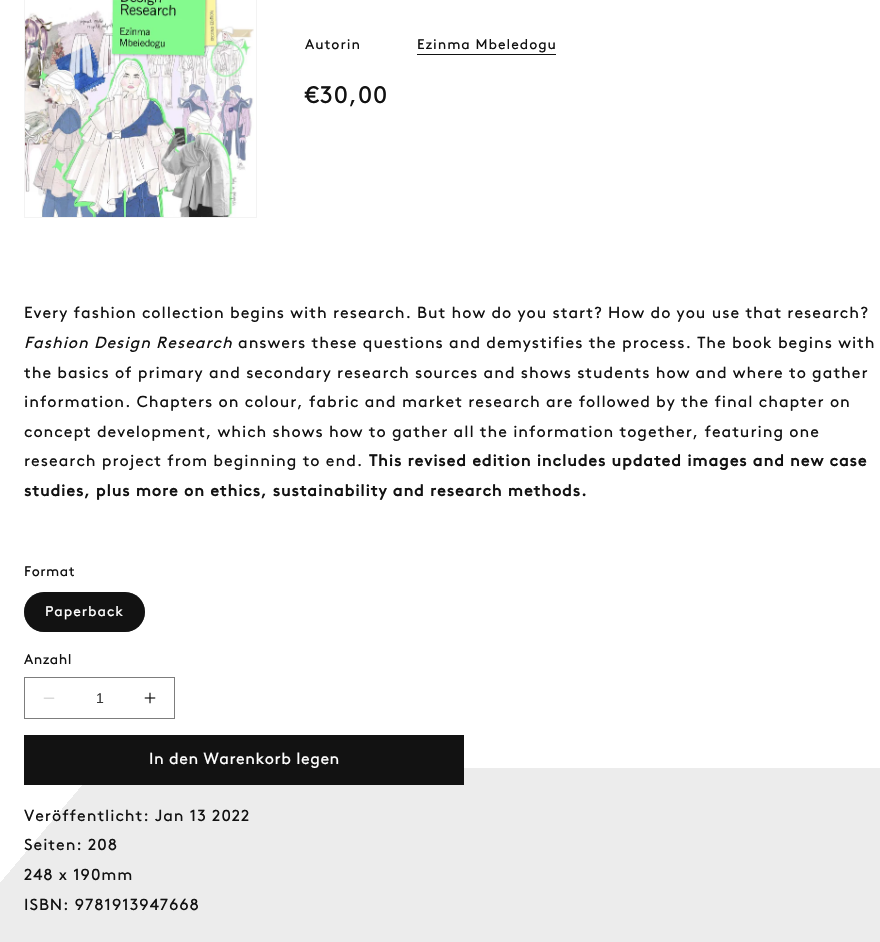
void draw(SkCanvas* canvas) {
    SkPaint paint;
    paint.setAntiAlias(true);
    auto face = [&](const char* family, int weight, float size, bool italic = false) {
        SkFontStyle style(weight, SkFontStyle::kNormal_Width,
            italic ? SkFontStyle::kItalic_Slant : SkFontStyle::kUpright_Slant);
        SkFont result(fontMgr->matchFamilyStyle(family, style), size);
        result.setSubpixel(true);
        return result;
    };
    auto write = [&](const char* s, float x, float y, const SkFont& font, SkColor color) {
        SkPaint ink(SkColor4f::FromColor(color));
        ink.setAntiAlias(true);
        canvas->drawString(s, x, y, font, ink);
    };
    auto writeSpaced = [&](const char* s, float x, float y, const SkFont& font, const SkPaint& ink, float letter, float word) {
        std::vector<SkGlyphID> glyphs(font.countText(s, strlen(s), SkTextEncoding::kUTF8));
        std::vector<float> xs(glyphs.size());
        font.textToGlyphs(s, strlen(s), SkTextEncoding::kUTF8, glyphs);
        font.getXPos(glyphs, xs, x);
        float extra = 0;
        for (size_t i = 0; i < glyphs.size(); i++) {
            xs[i] += extra;
            extra += letter + word * (glyphs[i] == font.unicharToGlyph(' '));
        }
        canvas->drawTextBlob(SkTextBlob::MakeFromPosHGlyphs(glyphs, xs, y, font), 0, 0, ink);
    };
    auto block = [&](float x, float y, float w, float h, SkColor color) {
        SkPaint ink(SkColor4f::FromColor(color));
        ink.setAntiAlias(true);
        canvas->drawRect(SkRect::MakeXYWH(x, y, w, h), ink);
    };
    auto card = [&](float x, float y, float w, float h, float radius, SkColor color) {
        SkPaint ink(SkColor4f::FromColor(color));
        ink.setAntiAlias(true);
        canvas->drawRoundRect(SkRect::MakeXYWH(x, y, w, h), radius, radius, ink);
    };
    auto paste = [&](const char* path, float x, float y, float w, float h) {
        auto image = SkImages::DeferredFromEncodedData(SkData::MakeFromFileName(path));
        canvas->drawImageRect(image, SkRect::MakeXYWH(x, y, w, h), SkSamplingOptions());
    };
    canvas->clear(SK_ColorWHITE);
    paint.setStyle(SkPaint::kStroke_Style);
    paint.setStrokeWidth(1);
    paint.setColor(SkColorSetRGB(243, 243, 243));
    canvas->drawRect(SkRect::MakeXYWH(24.5f, -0.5f, 232, 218), paint);
    paste("pic1.png", 25, 0, 229, 217);
    auto kFont1 = face("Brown", 400, 14);
    paint.setStyle(SkPaint::kFill_Style);
    paint.setColor(SkColorSetRGB(18, 18, 18));
    writeSpaced("Autorin", 305, 49, kFont1, paint, 0.95f, 0);
    writeSpaced("Ezinma Mbeledogu", 417, 49, kFont1, paint, 0.95f, 0);
    block(417, 54, 139, 1, SkColorSetRGB(18, 18, 18));
    auto kFont2 = face("Brown", 400, 24);
    writeSpaced("€30,00", 305, 103, kFont2, paint, 0.95f, 0);
    auto kFont3 = face("Brown", 400, 16);
    writeSpaced("Every fashion collection begins with research. But how do you start? How do you use that research?", 24, 318, kFont3, paint, 0.95f, 0);
    auto kFont4 = face("Brown", 400, 16, true);
    writeSpaced("Fashion Design Research", 24, 348, kFont4, paint, 0.95f, 0);
    writeSpaced("answers these questions and demystifies the process. The book begins with", 238, 348, kFont3, paint, 0.95f, 0);
    writeSpaced("the basics of primary and secondary research sources and shows students how and where to gather", 24, 378, kFont3, paint, 0.95f, 0);
    writeSpaced("information. Chapters on colour, fabric and market research are followed by the final chapter on", 24, 407, kFont3, paint, 0.95f, 0);
    writeSpaced("concept development, which shows how to gather all the information together, featuring one", 24, 437, kFont3, paint, 0.95f, 0);
    writeSpaced("research project from beginning to end.", 24, 466, kFont3, paint, 0.95f, 0);
    auto kFont5 = face("Brown", 700, 16);
    writeSpaced("This revised edition includes updated images and new case", 369, 466, kFont5, paint, 0.95f, 0);
    writeSpaced("studies, plus more on ethics, sustainability and research methods.", 24, 496, kFont5, paint, 0.95f, 0);
    writeSpaced("Format", 24, 576, kFont1, paint, 0.5f, 0);
    card(24, 592, 121, 40, 20, SkColorSetRGB(18, 18, 18));
    paint.setStyle(SkPaint::kStroke_Style);
    paint.setColor(SkColorSetARGB(140, 18, 18, 18));
    canvas->drawRoundRect(SkRect::MakeXYWH(24.5f, 592.5f, 120, 39), 19.5f, 19.5f, paint);
    paint.setStyle(SkPaint::kFill_Style);
    paint.setColor(SK_ColorWHITE);
    writeSpaced("Paperback", 45, 616, kFont1, paint, 0.95f, 0);
    paint.setColor(SkColorSetRGB(18, 18, 18));
    writeSpaced("Anzahl", 24, 664, kFont1, paint, 0.5f, 0);
    paste("pic2.png", 43, 697, 12, 2);
    paste("pic3.png", 144, 692, 12, 12);
    paint.setStyle(SkPaint::kStroke_Style);
    paint.setColor(SkColorSetRGB(125, 125, 125));
    canvas->drawRect(SkRect::MakeXYWH(24.5f, 677.5f, 150, 41), paint);
    auto kFont6 = face("Liberation Sans", 400, 14);
    write("1", 96, 703, kFont6, SkColorSetRGB(54, 54, 54));
    paint.setStyle(SkPaint::kFill_Style);
    {
        const SkColor colors[] = {SK_ColorWHITE, SkColorSetRGB(236, 236, 236)};
        const float stops[] = {0.06f, 0.06f};
        const SkPoint ends[] = {{-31, 805}, {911, 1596}};
        paint.setShader(SkGradientShader::MakeLinear(ends, colors, stops, 2, SkTileMode::kClamp));
        paint.setAlpha(255);
    }
    canvas->drawRect(SkRect::MakeXYWH(0, 768, 880, 174), paint);
    block(25, 736, 438, 48, SkColorSetRGB(18, 18, 18));
    paint.setStyle(SkPaint::kStroke_Style);
    paint.setShader(nullptr);
    paint.setColor(SkColorSetRGB(18, 18, 18));
    canvas->drawRect(SkRect::MakeXYWH(24.5f, 735.5f, 439, 49), paint);
    paint.setStyle(SkPaint::kFill_Style);
    paint.setColor(SK_ColorWHITE);
    writeSpaced("In den Warenkorb legen", 149, 764, kFont3, paint, 0.5f, 0);
    paint.setColor(SkColorSetRGB(18, 18, 18));
    writeSpaced("Veröffentlicht: Jan 13 2022", 24, 821, kFont3, paint, 0.95f, 0);
    writeSpaced("Seiten: 208", 24, 850, kFont3, paint, 0.95f, 0);
    writeSpaced("248 x 190mm", 24, 880, kFont3, paint, 0.95f, 0);
    writeSpaced("ISBN: 9781913947668", 24, 910, kFont3, paint, 0.95f, 0);
}
